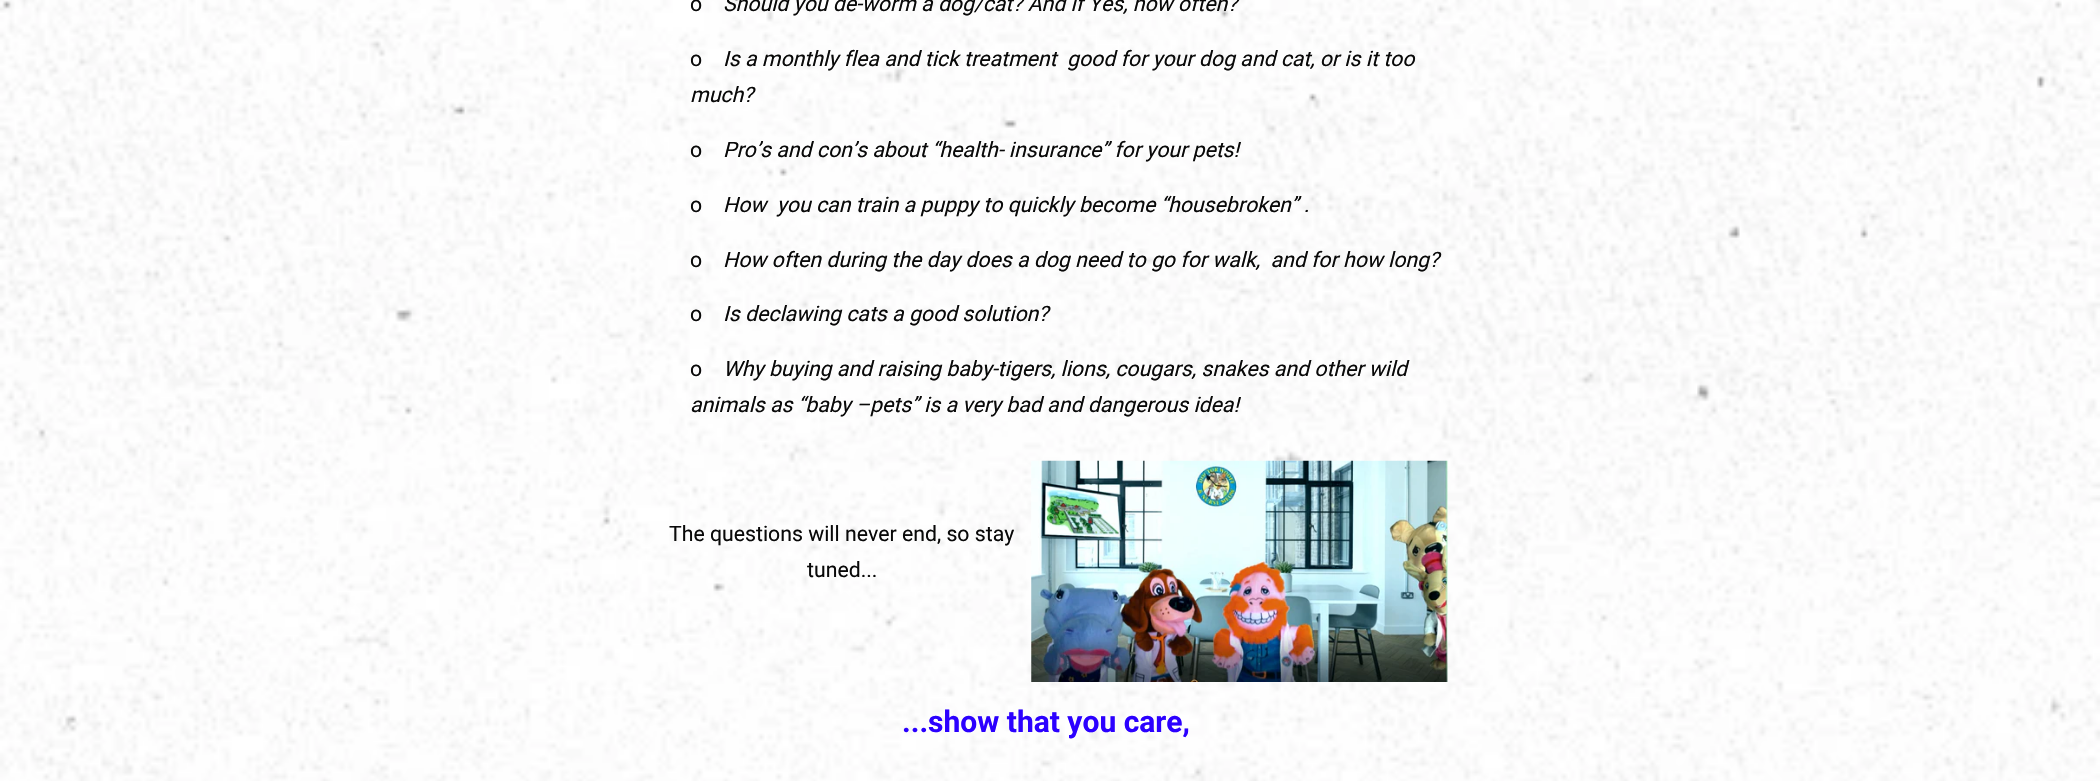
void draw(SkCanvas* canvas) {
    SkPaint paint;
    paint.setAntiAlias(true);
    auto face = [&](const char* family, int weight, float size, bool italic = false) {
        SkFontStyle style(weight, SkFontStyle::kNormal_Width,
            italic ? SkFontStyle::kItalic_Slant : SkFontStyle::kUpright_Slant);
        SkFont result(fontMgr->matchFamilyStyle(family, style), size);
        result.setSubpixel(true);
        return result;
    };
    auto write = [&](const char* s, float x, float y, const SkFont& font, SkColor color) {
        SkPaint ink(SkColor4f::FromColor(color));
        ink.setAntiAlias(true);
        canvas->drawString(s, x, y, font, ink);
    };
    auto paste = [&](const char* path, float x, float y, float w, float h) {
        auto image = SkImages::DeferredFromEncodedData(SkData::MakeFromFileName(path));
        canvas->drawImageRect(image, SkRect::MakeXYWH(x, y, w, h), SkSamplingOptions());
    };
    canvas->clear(SK_ColorWHITE);
    paste("pic1.png", 0, 0, 2100, 781);
    auto kFont1 = face("Roboto", 400, 21.25f);
    write("o", 690, 11, kFont1, SkColorSetRGB(9, 9, 9));
    auto kFont2 = face("Roboto", 400, 21.25f, true);
    write("Should you de-worm a dog/cat? And if Yes, how often?", 723, 11, kFont2, SkColorSetRGB(9, 9, 9));
    write("o", 690, 66, kFont1, SkColorSetRGB(9, 9, 9));
    write("Is a monthly flea and tick treatment  good for your dog and cat, or is it too", 723, 66, kFont2, SkColorSetRGB(9, 9, 9));
    write("much?", 690, 102, kFont2, SkColorSetRGB(9, 9, 9));
    write("o", 690, 157, kFont1, SkColorSetRGB(9, 9, 9));
    write("Pro’s and con’s about “health- insurance” for your pets!", 723, 157, kFont2, SkColorSetRGB(9, 9, 9));
    write("o", 690, 212, kFont1, SkColorSetRGB(9, 9, 9));
    write("How  you can train a puppy to quickly become “housebroken” .", 723, 212, kFont2, SkColorSetRGB(9, 9, 9));
    write("o", 690, 267, kFont1, SkColorSetRGB(9, 9, 9));
    write("How often during the day does a dog need to go for walk,  and for how long?", 723, 267, kFont2, SkColorSetRGB(9, 9, 9));
    write("o", 690, 321, kFont1, SkColorSetRGB(9, 9, 9));
    write("Is declawing cats a good solution?", 723, 321, kFont2, SkColorSetRGB(9, 9, 9));
    write("o", 690, 376, kFont1, SkColorSetRGB(9, 9, 9));
    write("Why buying and raising baby-tigers, lions, cougars, snakes and other wild", 723, 376, kFont2, SkColorSetRGB(9, 9, 9));
    write("animals as “baby –pets” is a very bad and dangerous idea!", 690, 412, kFont2, SkColorSetRGB(9, 9, 9));
    write("The questions will never end, so stay", 669, 541, kFont1, SkColorSetRGB(9, 9, 9));
    write("tuned...", 807, 577, kFont1, SkColorSetRGB(9, 9, 9));
    paste("pic2.png", 1031, 460, 417, 222);
    auto kFont3 = face("Roboto", 700, 30);
    write("...show that you care,", 902, 732, kFont3, SkColorSetRGB(43, 0, 255));
}
